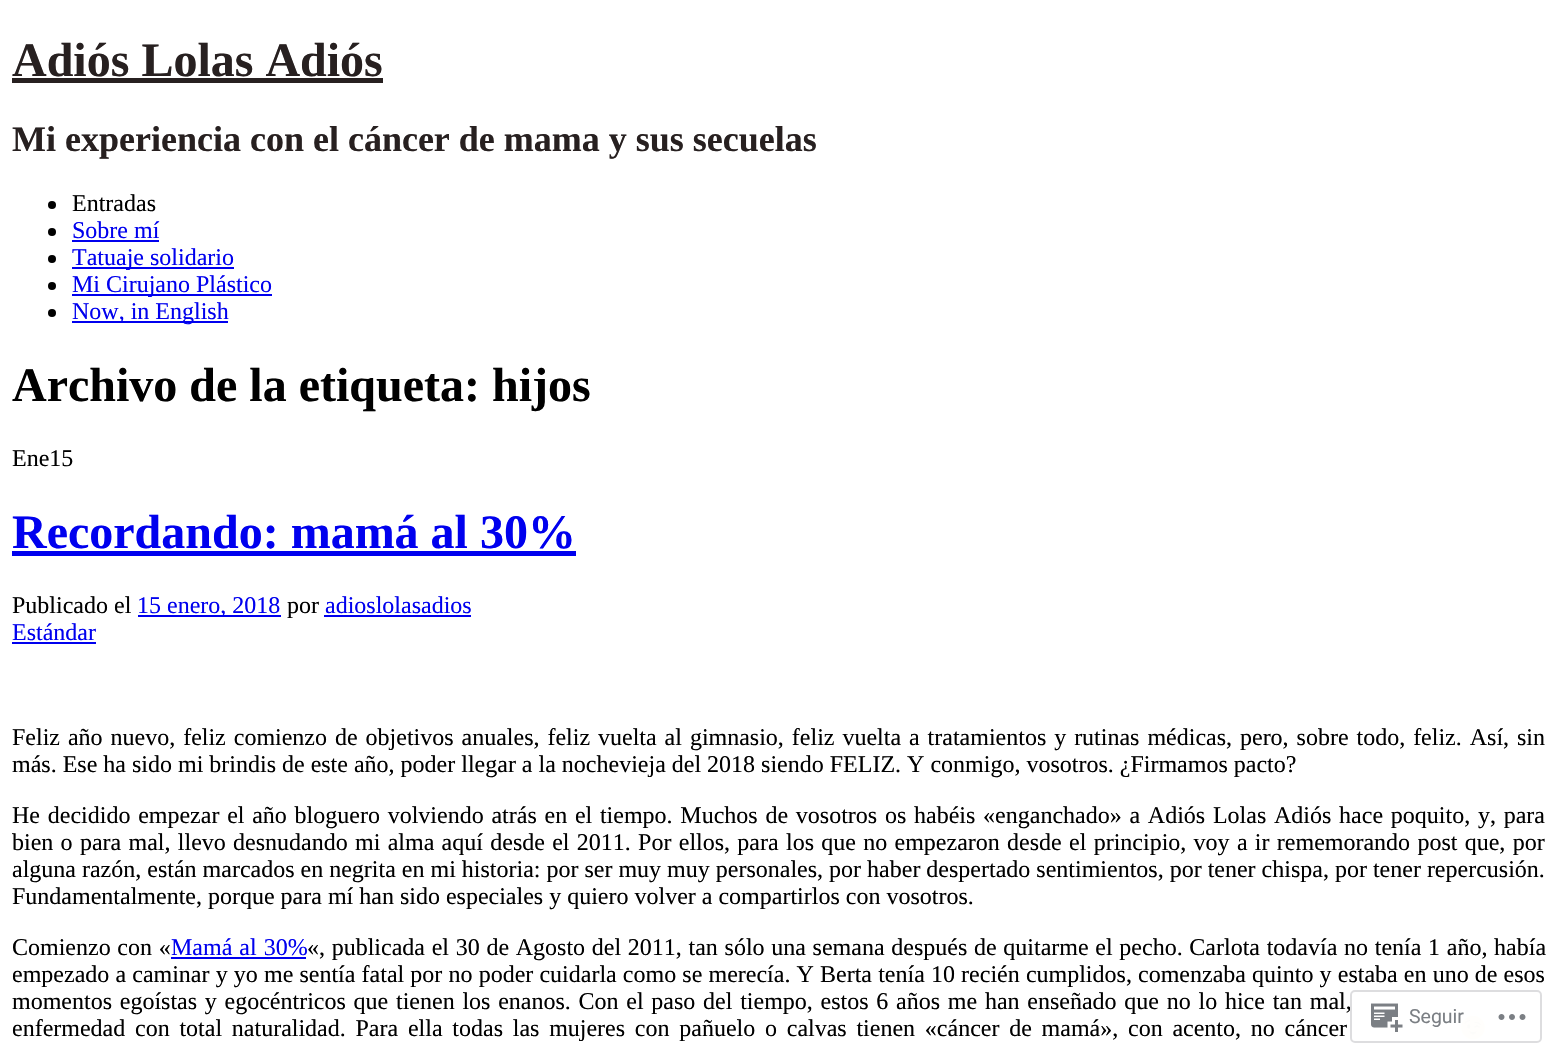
void draw(SkCanvas* canvas) {
    SkPaint paint;
    paint.setAntiAlias(true);
    auto face = [&](const char* family, int weight, float size, bool italic = false) {
        SkFontStyle style(weight, SkFontStyle::kNormal_Width,
            italic ? SkFontStyle::kItalic_Slant : SkFontStyle::kUpright_Slant);
        SkFont result(fontMgr->matchFamilyStyle(family, style), size);
        result.setSubpixel(true);
        return result;
    };
    auto write = [&](const char* s, float x, float y, const SkFont& font, SkColor color) {
        SkPaint ink(SkColor4f::FromColor(color));
        ink.setAntiAlias(true);
        canvas->drawString(s, x, y, font, ink);
    };
    auto writeSpaced = [&](const char* s, float x, float y, const SkFont& font, const SkPaint& ink, float letter, float word) {
        std::vector<SkGlyphID> glyphs(font.countText(s, strlen(s), SkTextEncoding::kUTF8));
        std::vector<float> xs(glyphs.size());
        font.textToGlyphs(s, strlen(s), SkTextEncoding::kUTF8, glyphs);
        font.getXPos(glyphs, xs, x);
        float extra = 0;
        for (size_t i = 0; i < glyphs.size(); i++) {
            xs[i] += extra;
            extra += letter + word * (glyphs[i] == font.unicharToGlyph(' '));
        }
        canvas->drawTextBlob(SkTextBlob::MakeFromPosHGlyphs(glyphs, xs, y, font), 0, 0, ink);
    };
    auto block = [&](float x, float y, float w, float h, SkColor color) {
        SkPaint ink(SkColor4f::FromColor(color));
        ink.setAntiAlias(true);
        canvas->drawRect(SkRect::MakeXYWH(x, y, w, h), ink);
    };
    auto card = [&](float x, float y, float w, float h, float radius, SkColor color) {
        SkPaint ink(SkColor4f::FromColor(color));
        ink.setAntiAlias(true);
        canvas->drawRoundRect(SkRect::MakeXYWH(x, y, w, h), radius, radius, ink);
    };
    auto paste = [&](const char* path, float x, float y, float w, float h) {
        auto image = SkImages::DeferredFromEncodedData(SkData::MakeFromFileName(path));
        canvas->drawImageRect(image, SkRect::MakeXYWH(x, y, w, h), SkSamplingOptions());
    };
    canvas->clear(SK_ColorWHITE);
    auto kFont1 = face("Liberation Serif", 700, 48);
    write("Adiós Lolas Adiós", 12, 76, kFont1, SkColorSetRGB(39, 32, 32));
    block(12, 78, 371, 5, SkColorSetRGB(39, 32, 32));
    auto kFont2 = face("Liberation Serif", 700, 36);
    write("Mi experiencia con el cáncer de mama y sus secuelas", 12, 151, kFont2, SkColorSetRGB(39, 32, 32));
    paint.setColor(SK_ColorBLACK);
    canvas->drawCircle(52, 205, 4, paint);
    auto kFont3 = face("Liberation Serif", 400, 24);
    write("Entradas", 72, 211, kFont3, SK_ColorBLACK);
    canvas->drawCircle(52, 232, 4, paint);
    write("Sobre mí", 72, 238, kFont3, SkColorSetRGB(0, 0, 238));
    block(72, 240, 87, 2, SkColorSetRGB(0, 0, 238));
    canvas->drawCircle(52, 259, 4, paint);
    block(72, 267, 162, 2, SkColorSetRGB(0, 0, 238));
    write("Tatuaje solidario", 72, 265, kFont3, SkColorSetRGB(0, 0, 238));
    canvas->drawCircle(52, 286, 4, paint);
    block(72, 294, 200, 2, SkColorSetRGB(0, 0, 238));
    write("Mi Cirujano Plástico", 72, 292, kFont3, SkColorSetRGB(0, 0, 238));
    canvas->drawCircle(52, 313, 4, paint);
    block(72, 321, 156, 2, SkColorSetRGB(0, 0, 238));
    write("Now, in English", 72, 319, kFont3, SkColorSetRGB(0, 0, 238));
    write("Archivo de la etiqueta: hijos", 12, 401, kFont1, SK_ColorBLACK);
    write("Ene15", 12, 466, kFont3, SK_ColorBLACK);
    write("Recordando: mamá al 30%", 12, 548, kFont1, SkColorSetRGB(0, 0, 238));
    block(12, 551, 564, 5, SkColorSetRGB(0, 0, 238));
    write("Publicado el", 12, 613, kFont3, SK_ColorBLACK);
    block(138, 615, 143, 2, SkColorSetRGB(0, 0, 238));
    write("15 enero, 2018", 137, 613, kFont3, SkColorSetRGB(0, 0, 238));
    write("por", 287, 613, kFont3, SK_ColorBLACK);
    block(324, 615, 147, 2, SkColorSetRGB(0, 0, 238));
    write("adioslolasadios", 325, 613, kFont3, SkColorSetRGB(0, 0, 238));
    write("Estándar", 12, 640, kFont3, SkColorSetRGB(0, 0, 238));
    block(12, 642, 84, 2, SkColorSetRGB(0, 0, 238));
    writeSpaced("Feliz año nuevo, feliz comienzo de objetivos anuales, feliz vuelta al gimnasio, feliz vuelta a tratamientos y rutinas médicas, pero, sobre todo, feliz. Así, sin", 12, 745, kFont3, paint, 0, 1.95f);
    write("más. Ese ha sido mi brindis de este año, poder llegar a la nochevieja del 2018 siendo FELIZ. Y conmigo, vosotros. ¿Firmamos pacto?", 12, 772, kFont3, SK_ColorBLACK);
    writeSpaced("He decidido empezar el año bloguero volviendo atrás en el tiempo. Muchos de vosotros os habéis «enganchado» a Adiós Lolas Adiós hace poquito, y, para", 12, 823, kFont3, paint, 0, 1.75f);
    writeSpaced("bien o para mal, llevo desnudando mi alma aquí desde el 2011. Por ellos, para los que no empezaron desde el principio, voy a ir rememorando post que, por", 12, 850, kFont3, paint, 0, 1.3f);
    write("alguna razón, están marcados en negrita en mi historia: por ser muy muy personales, por haber despertado sentimientos, por tener chispa, por tener repercusión.", 12, 877, kFont3, SK_ColorBLACK);
    write("Fundamentalmente, porque para mí han sido especiales y quiero volver a compartirlos con vosotros.", 12, 904, kFont3, SK_ColorBLACK);
    writeSpaced("Comienzo con «", 12, 955, kFont3, paint, 0, 0.7f);
    paint.setColor(SkColorSetRGB(0, 0, 238));
    writeSpaced("Mamá al 30%", 171, 955, kFont3, paint, 0, 1);
    block(171, 957, 135, 2, SkColorSetRGB(0, 0, 238));
    paint.setColor(SK_ColorBLACK);
    writeSpaced("«, publicada el 30 de Agosto del 2011, tan sólo una semana después de quitarme el pecho. Carlota todavía no tenía 1 año, había", 307, 955, kFont3, paint, 0, 0.7f);
    writeSpaced("empezado a caminar y yo me sentía fatal por no poder cuidarla como se merecía. Y Berta tenía 10 recién cumplidos, comenzaba quinto y estaba en uno de esos", 12, 982, kFont3, paint, 0, 0.15f);
    writeSpaced("momentos egoístas y egocéntricos que tienen los enanos. Con el paso del tiempo, estos 6 años me han enseñado que no lo hice tan mal,", 12, 1009, kFont3, paint, 0, 1.75f);
    writeSpaced("enfermedad con total naturalidad. Para ella todas las mujeres con pañuelo o calvas tienen «cáncer de mamá», con acento, no cáncer", 12, 1036, kFont3, paint, 0, 3.75f);
    paste("pic1.png", 1461, 1016, 24, 24);
    card(1350, 990, 192, 53, 5, SkColorSetARGB(250, 255, 255, 255));
    paint.setStyle(SkPaint::kStroke_Style);
    paint.setStrokeWidth(2);
    paint.setColor(SkColorSetARGB(250, 220, 220, 222));
    canvas->drawRoundRect(SkRect::MakeXYWH(1351, 991, 190, 51), 4, 4, paint);
    paste("pic2.png", 1371, 1003, 32, 29);
    auto kFont4 = face("Roboto", 400, 19.5f);
    write("Seguir", 1409, 1023, kFont4, SkColorSetRGB(123, 127, 132));
    paste("pic3.png", 1498, 1014, 28, 6);
}
